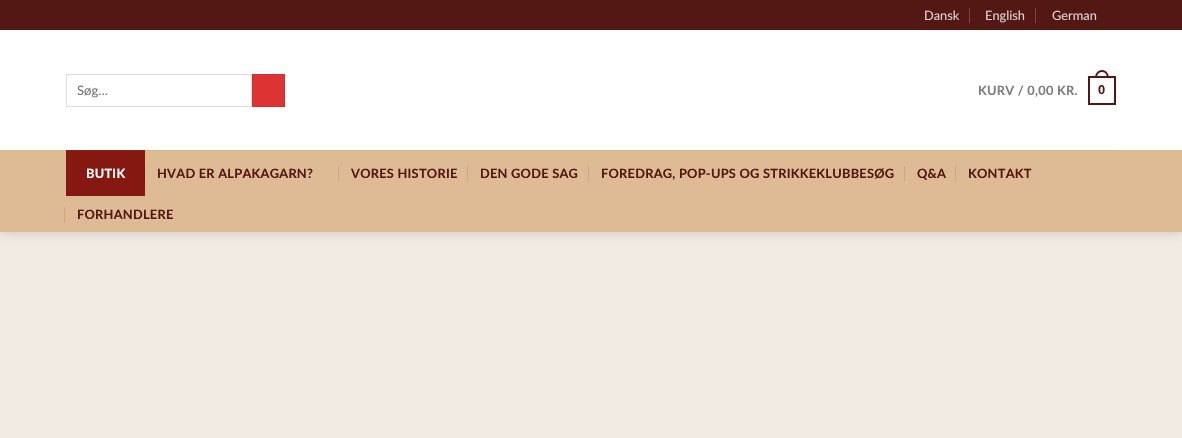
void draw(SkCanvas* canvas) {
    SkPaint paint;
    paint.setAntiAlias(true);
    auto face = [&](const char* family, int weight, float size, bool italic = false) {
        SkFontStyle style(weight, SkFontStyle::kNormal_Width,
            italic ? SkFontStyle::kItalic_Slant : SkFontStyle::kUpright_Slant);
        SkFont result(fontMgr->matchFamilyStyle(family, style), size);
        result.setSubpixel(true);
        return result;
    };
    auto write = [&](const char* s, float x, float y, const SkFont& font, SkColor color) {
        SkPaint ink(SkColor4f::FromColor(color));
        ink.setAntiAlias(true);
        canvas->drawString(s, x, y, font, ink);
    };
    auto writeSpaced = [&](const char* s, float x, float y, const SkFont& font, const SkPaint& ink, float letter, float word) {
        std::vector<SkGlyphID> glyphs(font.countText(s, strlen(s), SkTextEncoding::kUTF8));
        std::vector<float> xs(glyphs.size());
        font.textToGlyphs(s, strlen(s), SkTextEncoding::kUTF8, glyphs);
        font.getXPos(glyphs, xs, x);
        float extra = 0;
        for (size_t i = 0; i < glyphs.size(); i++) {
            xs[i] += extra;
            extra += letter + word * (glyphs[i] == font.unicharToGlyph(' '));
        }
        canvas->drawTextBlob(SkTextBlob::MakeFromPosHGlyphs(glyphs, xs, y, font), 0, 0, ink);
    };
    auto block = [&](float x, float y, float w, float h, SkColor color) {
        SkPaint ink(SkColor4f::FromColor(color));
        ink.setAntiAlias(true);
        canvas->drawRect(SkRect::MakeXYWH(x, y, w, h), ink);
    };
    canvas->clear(SkColorSetRGB(242, 235, 227));
    paint.setColor(SkColorSetARGB(38, 0, 0, 0));
    paint.setMaskFilter(SkMaskFilter::MakeBlur(kNormal_SkBlurStyle, 5));
    canvas->drawRect(SkRect::MakeXYWH(1, 1, 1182, 232), paint);
    paint.setMaskFilter(nullptr);
    block(0, 0, 1182, 30, SkColorSetRGB(83, 24, 20));
    auto kFont1 = face("Lato", 400, 12.8f);
    write("Dansk", 924, 20, kFont1, SkColorSetRGB(221, 209, 208));
    block(969, 8, 1, 15, SkColorSetRGB(117, 70, 67));
    write("English", 985, 20, kFont1, SkColorSetRGB(221, 209, 208));
    block(1035, 8, 1, 15, SkColorSetRGB(117, 70, 67));
    write("German", 1052, 20, kFont1, SkColorSetRGB(221, 209, 208));
    block(0, 30, 1182, 120, SK_ColorWHITE);
    paint.setStyle(SkPaint::kStroke_Style);
    paint.setStrokeWidth(1);
    paint.setColor(SkColorSetRGB(221, 221, 221));
    canvas->drawRect(SkRect::MakeXYWH(66.5f, 74.5f, 185, 32), paint);
    auto kFont2 = face("Lato", 400, 13);
    write("Søg…", 77, 95, kFont2, SkColorSetRGB(117, 117, 117));
    paint.setStyle(SkPaint::kFill_Style);
    paint.setColor(SkColorSetRGB(221, 51, 51));
    canvas->drawRect(SkRect::MakeXYWH(252.5f, 74.5f, 32, 32), paint);
    paint.setStyle(SkPaint::kStroke_Style);
    paint.setColor(SkColorSetRGB(210, 48, 48));
    canvas->drawRect(SkRect::MakeXYWH(252.5f, 74.5f, 32, 32), paint);
    auto kFont3 = face("Lato", 700, 12.8f);
    paint.setStyle(SkPaint::kFill_Style);
    paint.setColor(SkColorSetRGB(125, 125, 125));
    writeSpaced("KURV / 0,00 KR.", 978, 95, kFont3, paint, 0.25f, 0);
    paint.setStyle(SkPaint::kStroke_Style);
    paint.setStrokeWidth(2);
    paint.setColor(SkColorSetRGB(83, 24, 20));
    canvas->drawRect(SkRect::MakeXYWH(1089, 77, 26, 27), paint);
    paint.setStyle(SkPaint::kFill_Style);
    canvas->drawPath(SkPathBuilder(SkPathFillType::kEvenOdd).moveTo(1102, 70).cubicTo(1106.5f, 70, 1109, 74, 1109, 78).lineTo(1095, 78).cubicTo(1095, 74, 1097.5f, 70, 1102, 70).close().moveTo(1102, 72).cubicTo(1105.5f, 72, 1107, 75, 1107, 78).lineTo(1097, 78).cubicTo(1097, 75, 1098.5f, 72, 1102, 72).close().detach(), paint);
    auto kFont4 = face("Liberation Sans", 700, 12.8f);
    writeSpaced("0", 1098, 94, kFont4, paint, 0.25f, 0);
    block(0, 150, 1182, 82, SkColorSetRGB(223, 187, 149));
    block(145, 150, 971, 1, SkColorSetRGB(213, 180, 146));
    block(66, 151, 79, 45, SkColorSetRGB(134, 24, 18));
    block(66, 150, 79, 1, SkColorSetRGB(133, 34, 28));
    paint.setColor(SK_ColorWHITE);
    writeSpaced("BUTIK", 86, 178, kFont3, paint, 0.25f, 0);
    block(144, 166, 1, 15, SkColorSetRGB(121, 22, 16));
    paint.setColor(SkColorSetRGB(83, 24, 20));
    writeSpaced("HVAD ER ALPAKAGARN?", 157, 178, kFont3, paint, 0.25f, 0);
    block(338, 166, 1, 15, SkColorSetRGB(201, 168, 134));
    writeSpaced("VORES HISTORIE", 351, 178, kFont3, paint, 0.25f, 0);
    block(467, 166, 1, 15, SkColorSetRGB(201, 168, 134));
    writeSpaced("DEN GODE SAG", 480, 178, kFont3, paint, 0.25f, 0);
    block(588, 166, 1, 15, SkColorSetRGB(201, 168, 134));
    writeSpaced("FOREDRAG, POP-UPS OG STRIKKEKLUBBESØG", 601, 178, kFont3, paint, 0.25f, 0);
    block(904, 166, 1, 15, SkColorSetRGB(201, 168, 134));
    writeSpaced("Q&A", 917, 178, kFont3, paint, 0.25f, 0);
    block(955, 166, 1, 15, SkColorSetRGB(201, 168, 134));
    writeSpaced("KONTAKT", 968, 178, kFont3, paint, 0.25f, 0);
    block(64, 207, 1, 15, SkColorSetRGB(201, 168, 134));
    writeSpaced("FORHANDLERE", 77, 219, kFont3, paint, 0.25f, 0);
}
